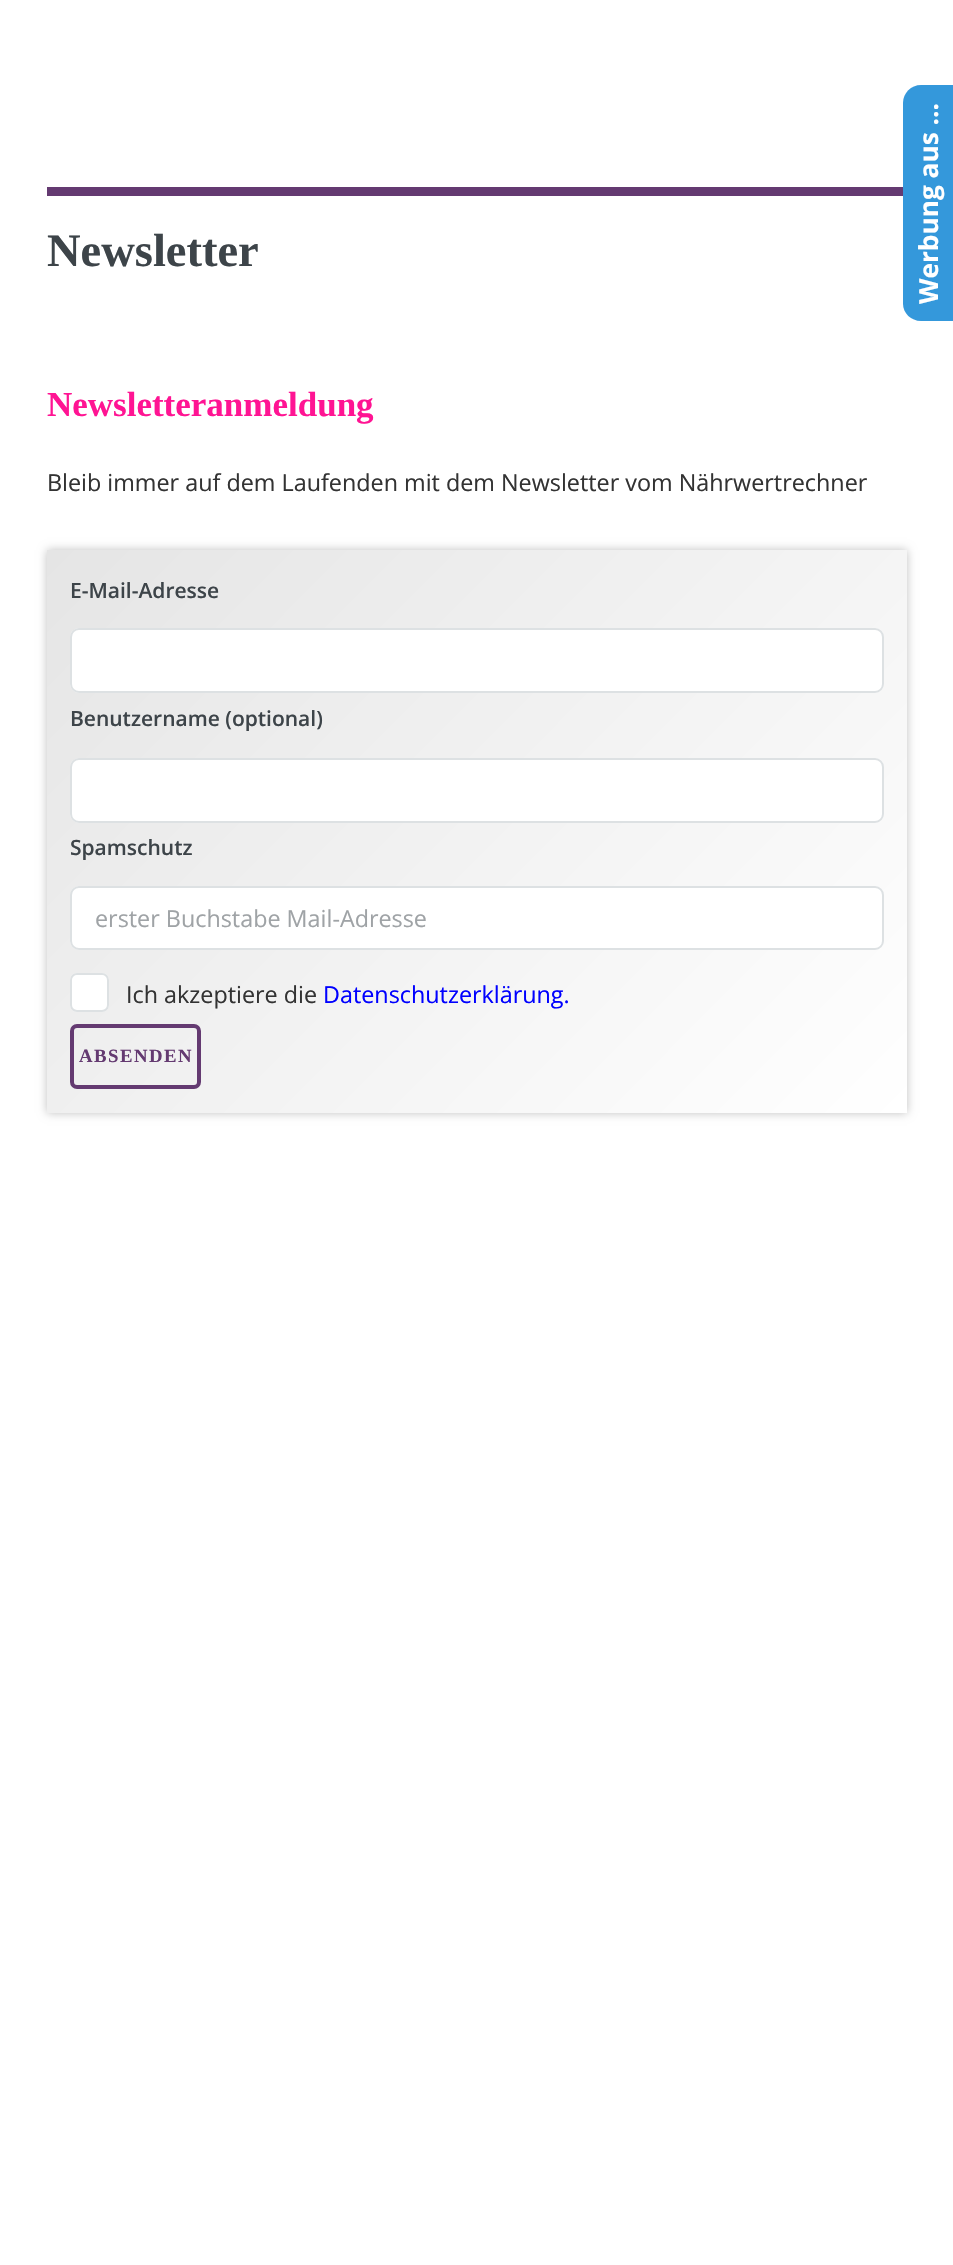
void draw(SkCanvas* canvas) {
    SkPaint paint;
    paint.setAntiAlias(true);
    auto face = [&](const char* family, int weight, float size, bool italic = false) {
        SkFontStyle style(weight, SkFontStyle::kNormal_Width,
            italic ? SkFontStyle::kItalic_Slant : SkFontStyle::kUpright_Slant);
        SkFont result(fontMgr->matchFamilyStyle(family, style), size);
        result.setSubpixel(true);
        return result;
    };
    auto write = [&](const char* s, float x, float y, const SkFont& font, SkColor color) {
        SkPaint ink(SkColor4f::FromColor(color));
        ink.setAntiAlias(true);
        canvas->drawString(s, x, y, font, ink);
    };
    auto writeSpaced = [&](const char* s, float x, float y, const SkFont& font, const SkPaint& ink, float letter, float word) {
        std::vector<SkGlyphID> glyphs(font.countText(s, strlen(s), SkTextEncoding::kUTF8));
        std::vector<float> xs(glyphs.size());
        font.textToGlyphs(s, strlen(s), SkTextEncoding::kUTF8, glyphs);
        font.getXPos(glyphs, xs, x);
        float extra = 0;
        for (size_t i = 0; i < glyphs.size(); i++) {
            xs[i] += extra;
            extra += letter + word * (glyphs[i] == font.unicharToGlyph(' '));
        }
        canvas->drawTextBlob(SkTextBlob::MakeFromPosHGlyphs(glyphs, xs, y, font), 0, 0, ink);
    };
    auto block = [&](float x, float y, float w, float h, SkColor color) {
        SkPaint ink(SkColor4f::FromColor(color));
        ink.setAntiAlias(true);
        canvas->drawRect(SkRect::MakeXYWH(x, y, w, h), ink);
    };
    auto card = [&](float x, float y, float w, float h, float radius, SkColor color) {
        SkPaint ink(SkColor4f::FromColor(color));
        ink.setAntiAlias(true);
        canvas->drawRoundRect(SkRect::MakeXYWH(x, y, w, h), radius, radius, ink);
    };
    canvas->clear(SK_ColorWHITE);
    paint.setColor(SkColorSetRGB(52, 152, 219));
    canvas->drawPath(SkPathBuilder().moveTo(903, 304).lineTo(903, 103).cubicTo(903, 93, 911, 85, 921, 85).lineTo(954, 85).lineTo(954, 321).lineTo(921, 321).cubicTo(911, 321, 903, 313, 903, 304).close().detach(), paint);
    auto kFont1 = face("Open Sans", 700, 26.25f);
    canvas->save();
    canvas->rotate(-90, 938, 304);
    write("Werbung aus …", 938, 304, kFont1, SK_ColorWHITE);
    canvas->restore();
    block(47, 187, 856, 9, SkColorSetRGB(100, 58, 113));
    auto kFont2 = face("Liberation Serif", 700, 46.5f);
    write("Newsletter", 47, 266, kFont2, SkColorSetRGB(61, 68, 73));
    auto kFont3 = face("Liberation Serif", 700, 35);
    write("Newsletteranmeldung", 47, 416, kFont3, SkColorSetRGB(255, 20, 147));
    auto kFont4 = face("Open Sans", 400, 23.35f);
    write("Bleib immer auf dem Laufenden mit dem Newsletter vom Nährwertrechner", 47, 491, kFont4, SkColorSetRGB(51, 51, 51));
    paint.setColor(SkColorSetRGB(192, 192, 192));
    paint.setMaskFilter(SkMaskFilter::MakeBlur(kNormal_SkBlurStyle, 4.5f));
    canvas->drawRect(SkRect::MakeXYWH(47, 550, 860, 563), paint);
    paint.setMaskFilter(nullptr);
    {
        const SkColor colors[] = {SkColorSetRGB(229, 229, 229), SK_ColorWHITE};
        const float stops[] = {0, 1};
        const SkPoint ends[] = {{121, 476}, {833, 1187}};
        paint.setShader(SkGradientShader::MakeLinear(ends, colors, stops, 2, SkTileMode::kClamp));
        paint.setAlpha(255);
    }
    canvas->drawRect(SkRect::MakeXYWH(47, 550, 860, 563), paint);
    auto kFont5 = face("Open Sans", 600, 21);
    write("E-Mail-Adresse", 70, 598, kFont5, SkColorSetRGB(61, 68, 73));
    card(70, 628, 814, 65, 9, SK_ColorWHITE);
    paint.setStyle(SkPaint::kStroke_Style);
    paint.setStrokeWidth(2);
    paint.setShader(nullptr);
    paint.setColor(SkColorSetARGB(191, 210, 215, 217));
    canvas->drawRoundRect(SkRect::MakeXYWH(71, 629, 812, 63), 8, 8, paint);
    write("Benutzername (optional)", 70, 726, kFont5, SkColorSetRGB(61, 68, 73));
    card(70, 758, 814, 65, 9, SK_ColorWHITE);
    canvas->drawRoundRect(SkRect::MakeXYWH(71, 759, 812, 63), 8, 8, paint);
    write("Spamschutz", 70, 855, kFont5, SkColorSetRGB(61, 68, 73));
    card(70, 886, 814, 64, 9, SK_ColorWHITE);
    canvas->drawRoundRect(SkRect::MakeXYWH(71, 887, 812, 62), 8, 8, paint);
    write("erster Buchstabe Mail-Adresse", 95, 927, kFont4, SkColorSetRGB(159, 163, 166));
    card(70, 973, 39, 39, 7, SK_ColorWHITE);
    canvas->drawRoundRect(SkRect::MakeXYWH(71, 974, 37, 37), 6, 6, paint);
    write("Ich akzeptiere die", 126, 1003, kFont4, SkColorSetRGB(51, 51, 51));
    write("Datenschutzerklärung.", 323, 1003, kFont4, SkColorSetRGB(0, 0, 255));
    paint.setStrokeWidth(4);
    paint.setColor(SkColorSetRGB(100, 58, 113));
    canvas->drawRoundRect(SkRect::MakeXYWH(72, 1026, 127, 61), 5, 5, paint);
    auto kFont6 = face("Liberation Serif", 700, 18.75f);
    paint.setStyle(SkPaint::kFill_Style);
    writeSpaced("ABSENDEN", 79, 1062, kFont6, paint, 1.5f, 0);
}
